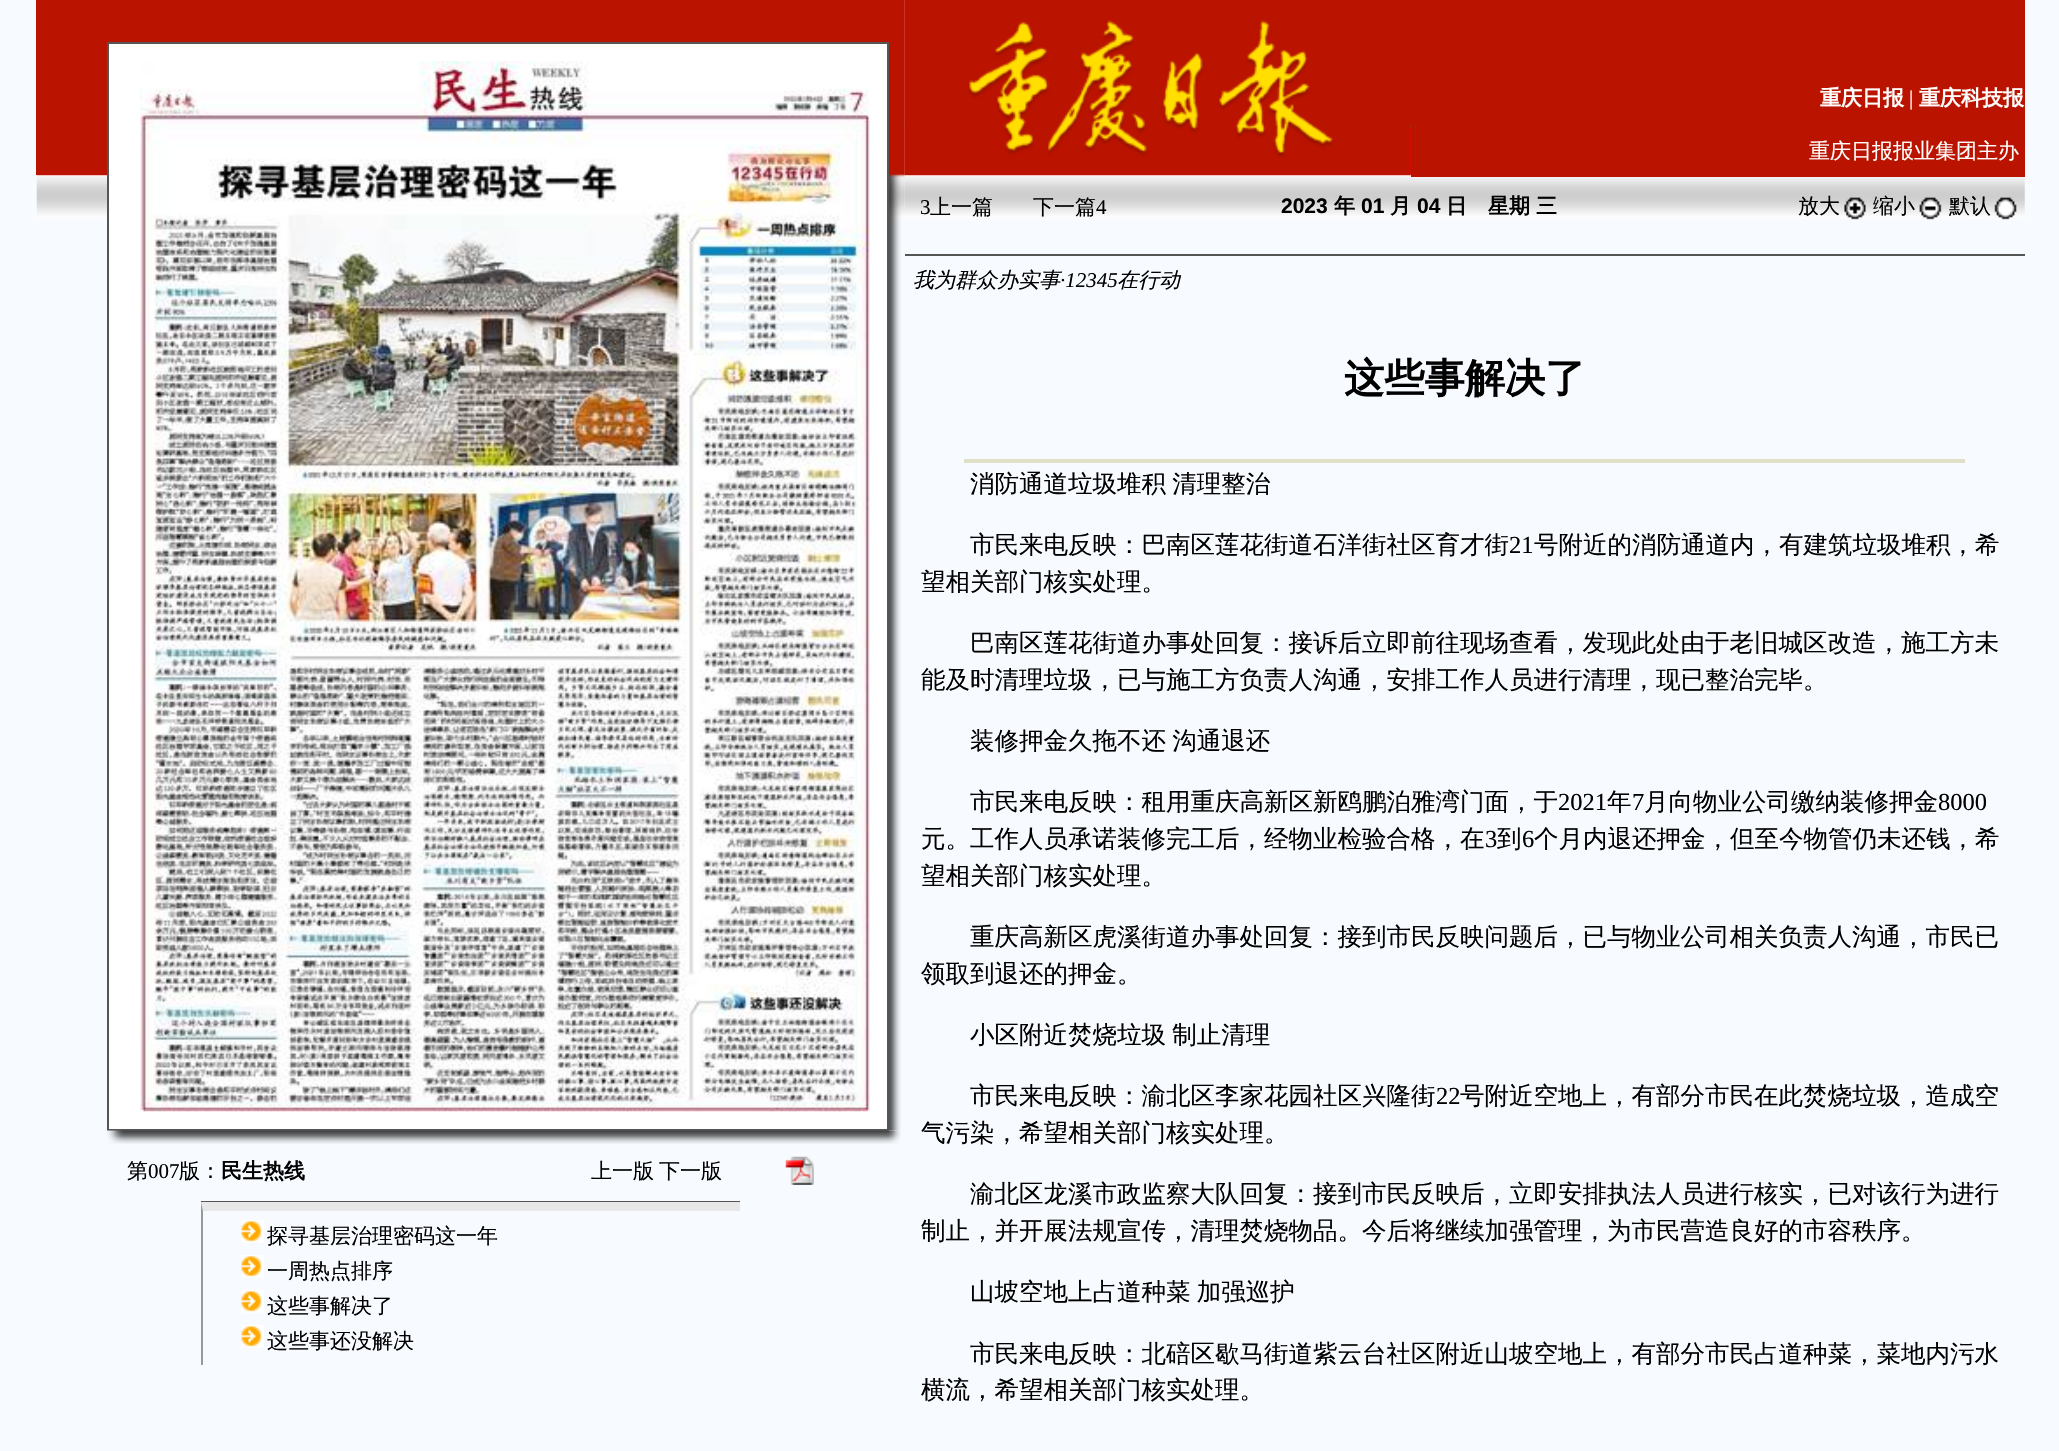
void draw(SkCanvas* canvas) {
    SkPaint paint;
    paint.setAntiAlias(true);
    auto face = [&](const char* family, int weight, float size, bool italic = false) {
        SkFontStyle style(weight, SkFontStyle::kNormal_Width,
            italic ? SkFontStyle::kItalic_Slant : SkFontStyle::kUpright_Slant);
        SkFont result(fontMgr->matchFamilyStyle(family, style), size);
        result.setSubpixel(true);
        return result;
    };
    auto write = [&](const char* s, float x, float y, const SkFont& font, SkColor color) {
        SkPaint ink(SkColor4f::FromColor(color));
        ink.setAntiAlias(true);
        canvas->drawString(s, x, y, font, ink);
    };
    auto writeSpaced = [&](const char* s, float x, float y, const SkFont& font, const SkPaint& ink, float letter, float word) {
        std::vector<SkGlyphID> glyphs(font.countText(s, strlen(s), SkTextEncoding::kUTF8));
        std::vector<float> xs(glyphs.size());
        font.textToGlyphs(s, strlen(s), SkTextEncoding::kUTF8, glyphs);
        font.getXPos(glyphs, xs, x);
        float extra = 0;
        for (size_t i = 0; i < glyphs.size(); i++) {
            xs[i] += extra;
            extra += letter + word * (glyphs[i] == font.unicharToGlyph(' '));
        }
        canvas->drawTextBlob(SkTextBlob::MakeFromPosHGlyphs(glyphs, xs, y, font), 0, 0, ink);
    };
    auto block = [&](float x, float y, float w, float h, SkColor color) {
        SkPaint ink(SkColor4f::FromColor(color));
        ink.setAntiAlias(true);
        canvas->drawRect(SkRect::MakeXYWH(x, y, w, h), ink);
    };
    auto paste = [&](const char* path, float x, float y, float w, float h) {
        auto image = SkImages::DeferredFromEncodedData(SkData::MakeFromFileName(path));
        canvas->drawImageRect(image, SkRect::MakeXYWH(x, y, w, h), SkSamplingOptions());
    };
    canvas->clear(SkColorSetRGB(247, 250, 255));
    paste("pic1.png", 36, 0, 1989, 219);
    block(36, 0, 71, 175, SkColorSetRGB(186, 20, 0));
    block(107, 0, 782, 42, SkColorSetRGB(186, 20, 0));
    paste("pic2.png", 889, 0, 16, 1131);
    paste("pic3.png", 889, 0, 16, 220);
    paint.setColor(SK_ColorWHITE);
    canvas->drawRect(SkRect::MakeXYWH(108, 43, 780, 1087), paint);
    paint.setStyle(SkPaint::kStroke_Style);
    paint.setStrokeWidth(2);
    paint.setColor(SkColorSetRGB(85, 85, 85));
    canvas->drawRect(SkRect::MakeXYWH(108, 43, 780, 1087), paint);
    paste("pic4.png", 140, 61, 730, 1051);
    paste("pic5.png", 107, 1130, 782, 14);
    paste("pic6.png", 889, 1130, 12, 14);
    auto kFont1 = face("WenQuanYi Zen Hei", 500, 21);
    write("第", 127, 1178, kFont1, SK_ColorBLACK);
    auto kFont2 = face("Liberation Serif", 400, 21);
    write("007", 148, 1178, kFont2, SK_ColorBLACK);
    write("版：", 179, 1178, kFont1, SK_ColorBLACK);
    auto kFont3 = face("WenQuanYi Zen Hei", 700, 21);
    write("民生热线", 221, 1178, kFont3, SK_ColorBLACK);
    write("上一版", 591, 1178, kFont1, SK_ColorBLACK);
    write("下一版", 659, 1178, kFont1, SK_ColorBLACK);
    paste("pic7.png", 785, 1156, 29, 29);
    block(201, 1201, 539, 2, SkColorSetRGB(85, 85, 85));
    paint.setStyle(SkPaint::kFill_Style);
    paint.setColor(SkColorSetRGB(232, 232, 232));
    canvas->drawPath(SkPathBuilder().moveTo(201, 1202).lineTo(740, 1202).lineTo(740, 1211).lineTo(203, 1211).close().detach(), paint);
    paint.setColor(SkColorSetRGB(153, 153, 153));
    canvas->drawPath(SkPathBuilder().moveTo(201, 1365).lineTo(201, 1202).lineTo(203, 1211).lineTo(203, 1365).close().detach(), paint);
    paste("pic8.png", 241, 1220, 23, 23);
    write("探寻基层治理密码这一年", 267, 1243, kFont1, SK_ColorBLACK);
    paste("pic8.png", 241, 1255, 23, 23);
    write("一周热点排序", 267, 1278, kFont1, SK_ColorBLACK);
    paste("pic8.png", 241, 1290, 23, 23);
    write("这些事解决了", 267, 1313, kFont1, SK_ColorBLACK);
    paste("pic8.png", 241, 1325, 23, 23);
    write("这些事还没解决", 267, 1348, kFont1, SK_ColorBLACK);
    block(1410, 0, 615, 126, SkColorSetRGB(186, 20, 0));
    paste("pic9.png", 904, 0, 507, 175);
    write("重庆日报", 1820, 105, kFont3, SK_ColorWHITE);
    write("|", 1909, 105, kFont2, SK_ColorWHITE);
    write("重庆科技报", 1919, 105, kFont3, SK_ColorWHITE);
    block(1411, 126, 614, 51, SkColorSetRGB(186, 20, 0));
    write("重庆日报报业集团主办", 1809, 158, kFont1, SK_ColorWHITE);
    block(905, 254, 1120, 2, SkColorSetRGB(85, 85, 85));
    write("3", 920, 214, kFont2, SK_ColorBLACK);
    write("上一篇", 930, 214, kFont1, SK_ColorBLACK);
    write("下一篇", 1033, 214, kFont1, SK_ColorBLACK);
    write("4", 1096, 214, kFont2, SK_ColorBLACK);
    auto kFont4 = face("Liberation Sans", 700, 21);
    write("2023", 1281, 213, kFont4, SK_ColorBLACK);
    write("年", 1334, 213, kFont3, SK_ColorBLACK);
    write("01", 1361, 213, kFont4, SK_ColorBLACK);
    write("月", 1390, 213, kFont3, SK_ColorBLACK);
    write("04", 1417, 213, kFont4, SK_ColorBLACK);
    write("日　星期", 1446, 213, kFont3, SK_ColorBLACK);
    write("三", 1536, 213, kFont3, SK_ColorBLACK);
    write("放大", 1798, 213, kFont1, SK_ColorBLACK);
    paste("pic10.png", 1844, 197, 22, 23);
    write("缩小", 1873, 213, kFont1, SK_ColorBLACK);
    paste("pic11.png", 1919, 197, 23, 23);
    write("默认", 1949, 213, kFont1, SK_ColorBLACK);
    paste("pic12.png", 1994, 197, 23, 23);
    auto kFont5 = face("WenQuanYi Zen Hei", 500, 21, true);
    write("我为群众办实事", 913, 287, kFont5, SK_ColorBLACK);
    auto kFont6 = face("Liberation Serif", 400, 21, true);
    write("·12345", 1060, 287, kFont6, SK_ColorBLACK);
    write("在行动", 1117, 287, kFont5, SK_ColorBLACK);
    auto kFont7 = face("WenQuanYi Zen Hei", 700, 40.25f);
    write("这些事解决了", 1344, 392, kFont7, SK_ColorBLACK);
    block(964, 459, 1001, 4, SkColorSetRGB(224, 224, 201));
    auto kFont8 = face("WenQuanYi Zen Hei", 500, 24.5f);
    paint.setColor(SK_ColorBLACK);
    writeSpaced("消防通道垃圾堆积 清理整治", 970, 492, kFont8, paint, 0, -1);
    write("市民来电反映：巴南区莲花街道石洋街社区育才街", 970, 553, kFont8, SK_ColorBLACK);
    auto kFont9 = face("Liberation Serif", 400, 24.5f);
    write("21", 1509, 553, kFont9, SK_ColorBLACK);
    write("号附近的消防通道内，有建筑垃圾堆积，希", 1534, 553, kFont8, SK_ColorBLACK);
    write("望相关部门核实处理。", 921, 590, kFont8, SK_ColorBLACK);
    write("巴南区莲花街道办事处回复：接诉后立即前往现场查看，发现此处由于老旧城区改造，施工方未", 970, 651, kFont8, SK_ColorBLACK);
    write("能及时清理垃圾，已与施工方负责人沟通，安排工作人员进行清理，现已整治完毕。", 921, 688, kFont8, SK_ColorBLACK);
    writeSpaced("装修押金久拖不还 沟通退还", 970, 749, kFont8, paint, 0, -1);
    write("市民来电反映：租用重庆高新区新鸥鹏泊雅湾门面，于", 970, 810, kFont8, SK_ColorBLACK);
    write("2021", 1558, 810, kFont9, SK_ColorBLACK);
    write("年", 1607, 810, kFont8, SK_ColorBLACK);
    write("7", 1632, 810, kFont9, SK_ColorBLACK);
    write("月向物业公司缴纳装修押金", 1644, 810, kFont8, SK_ColorBLACK);
    write("8000", 1938, 810, kFont9, SK_ColorBLACK);
    write("元。工作人员承诺装修完工后，经物业检验合格，在", 921, 847, kFont8, SK_ColorBLACK);
    write("3", 1485, 847, kFont9, SK_ColorBLACK);
    write("到", 1497, 847, kFont8, SK_ColorBLACK);
    write("6", 1522, 847, kFont9, SK_ColorBLACK);
    write("个月内退还押金，但至今物管仍未还钱，希", 1534, 847, kFont8, SK_ColorBLACK);
    write("望相关部门核实处理。", 921, 884, kFont8, SK_ColorBLACK);
    write("重庆高新区虎溪街道办事处回复：接到市民反映问题后，已与物业公司相关负责人沟通，市民已", 970, 945, kFont8, SK_ColorBLACK);
    write("领取到退还的押金。", 921, 982, kFont8, SK_ColorBLACK);
    writeSpaced("小区附近焚烧垃圾 制止清理", 970, 1043, kFont8, paint, 0, -1);
    write("市民来电反映：渝北区李家花园社区兴隆街", 970, 1104, kFont8, SK_ColorBLACK);
    write("22", 1436, 1104, kFont9, SK_ColorBLACK);
    write("号附近空地上，有部分市民在此焚烧垃圾，造成空", 1460, 1104, kFont8, SK_ColorBLACK);
    write("气污染，希望相关部门核实处理。", 921, 1141, kFont8, SK_ColorBLACK);
    write("渝北区龙溪市政监察大队回复：接到市民反映后，立即安排执法人员进行核实，已对该行为进行", 970, 1202, kFont8, SK_ColorBLACK);
    write("制止，并开展法规宣传，清理焚烧物品。今后将继续加强管理，为市民营造良好的市容秩序。", 921, 1239, kFont8, SK_ColorBLACK);
    writeSpaced("山坡空地上占道种菜 加强巡护", 970, 1300, kFont8, paint, 0, -1);
    write("市民来电反映：北碚区歇马街道紫云台社区附近山坡空地上，有部分市民占道种菜，菜地内污水", 970, 1362, kFont8, SK_ColorBLACK);
    write("横流，希望相关部门核实处理。", 921, 1398, kFont8, SK_ColorBLACK);
}
